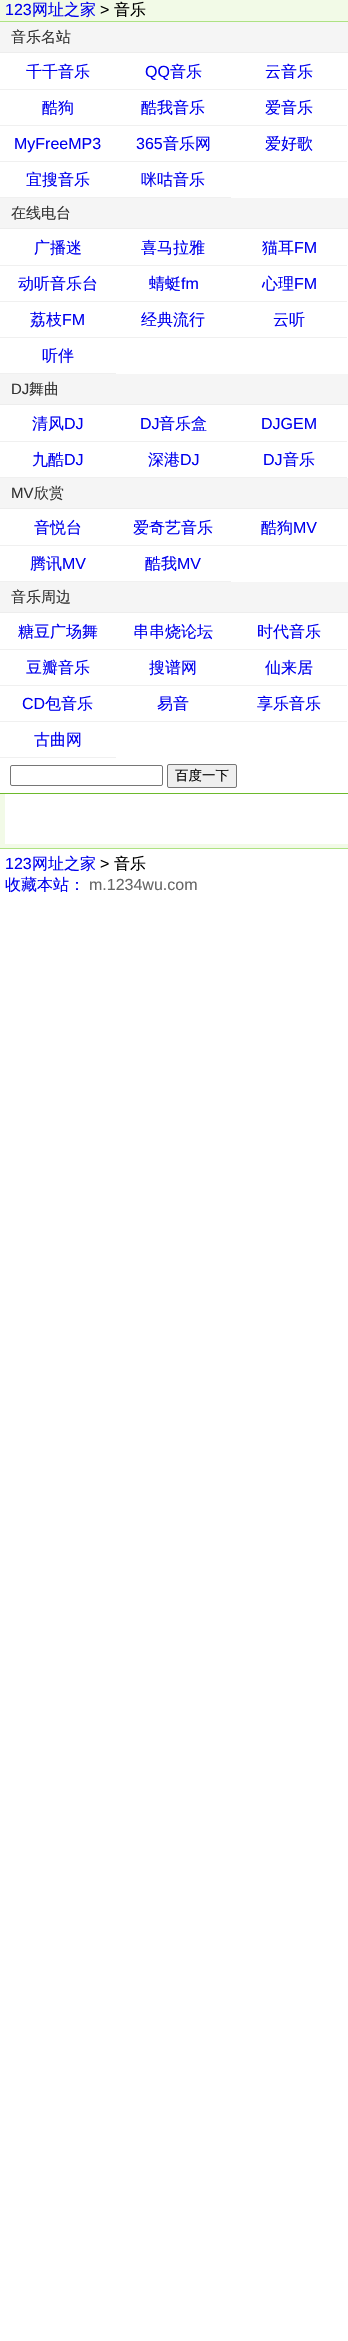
void draw(SkCanvas* canvas) {
    SkPaint paint;
    paint.setAntiAlias(true);
    auto face = [&](const char* family, int weight, float size, bool italic = false) {
        SkFontStyle style(weight, SkFontStyle::kNormal_Width,
            italic ? SkFontStyle::kItalic_Slant : SkFontStyle::kUpright_Slant);
        SkFont result(fontMgr->matchFamilyStyle(family, style), size);
        result.setSubpixel(true);
        return result;
    };
    auto write = [&](const char* s, float x, float y, const SkFont& font, SkColor color) {
        SkPaint ink(SkColor4f::FromColor(color));
        ink.setAntiAlias(true);
        canvas->drawString(s, x, y, font, ink);
    };
    auto block = [&](float x, float y, float w, float h, SkColor color) {
        SkPaint ink(SkColor4f::FromColor(color));
        ink.setAntiAlias(true);
        canvas->drawRect(SkRect::MakeXYWH(x, y, w, h), ink);
    };
    canvas->clear(SK_ColorWHITE);
    block(0, 0, 348, 21, SkColorSetRGB(242, 250, 231));
    block(0, 21, 348, 1, SkColorSetRGB(174, 226, 131));
    auto kFont1 = face("Liberation Sans", 400, 16);
    write("123", 5, 15, kFont1, SkColorSetRGB(0, 0, 238));
    auto kFont2 = face("WenQuanYi Zen Hei", 500, 16);
    write("网址之家", 32, 15, kFont2, SkColorSetRGB(0, 0, 238));
    write(">", 100, 15, kFont1, SK_ColorBLACK);
    write("音乐", 114, 15, kFont2, SK_ColorBLACK);
    block(0, 22, 348, 30, SkColorSetRGB(245, 245, 245));
    block(0, 52, 348, 1, SkColorSetRGB(237, 237, 237));
    auto kFont3 = face("WenQuanYi Zen Hei", 500, 15);
    write("音乐名站", 11, 42, kFont3, SkColorSetRGB(51, 51, 51));
    block(0, 89, 347, 1, SkColorSetRGB(240, 240, 240));
    write("千千音乐", 26, 77, kFont2, SkColorSetRGB(0, 0, 238));
    write("QQ", 145, 77, kFont1, SkColorSetRGB(0, 0, 238));
    write("音乐", 170, 77, kFont2, SkColorSetRGB(0, 0, 238));
    write("云音乐", 265, 77, kFont2, SkColorSetRGB(0, 0, 238));
    block(0, 125, 347, 1, SkColorSetRGB(240, 240, 240));
    write("酷狗", 42, 113, kFont2, SkColorSetRGB(0, 0, 238));
    write("酷我音乐", 141, 113, kFont2, SkColorSetRGB(0, 0, 238));
    write("爱音乐", 265, 113, kFont2, SkColorSetRGB(0, 0, 238));
    block(0, 161, 347, 1, SkColorSetRGB(240, 240, 240));
    write("MyFreeMP3", 14, 149, kFont1, SkColorSetRGB(0, 0, 238));
    write("365", 136, 149, kFont1, SkColorSetRGB(0, 0, 238));
    write("音乐网", 163, 149, kFont2, SkColorSetRGB(0, 0, 238));
    write("爱好歌", 265, 149, kFont2, SkColorSetRGB(0, 0, 238));
    block(0, 197, 231, 1, SkColorSetRGB(240, 240, 240));
    write("宜搜音乐", 26, 185, kFont2, SkColorSetRGB(0, 0, 238));
    write("咪咕音乐", 141, 185, kFont2, SkColorSetRGB(0, 0, 238));
    block(0, 198, 348, 30, SkColorSetRGB(245, 245, 245));
    block(0, 228, 348, 1, SkColorSetRGB(237, 237, 237));
    write("在线电台", 11, 218, kFont3, SkColorSetRGB(51, 51, 51));
    block(0, 265, 347, 1, SkColorSetRGB(240, 240, 240));
    write("广播迷", 34, 253, kFont2, SkColorSetRGB(0, 0, 238));
    write("喜马拉雅", 141, 253, kFont2, SkColorSetRGB(0, 0, 238));
    write("猫耳", 262, 253, kFont2, SkColorSetRGB(0, 0, 238));
    write("FM", 294, 253, kFont1, SkColorSetRGB(0, 0, 238));
    block(0, 301, 347, 1, SkColorSetRGB(240, 240, 240));
    write("动听音乐台", 18, 289, kFont2, SkColorSetRGB(0, 0, 238));
    write("蜻蜓", 149, 289, kFont2, SkColorSetRGB(0, 0, 238));
    write("fm", 181, 289, kFont1, SkColorSetRGB(0, 0, 238));
    write("心理", 262, 289, kFont2, SkColorSetRGB(0, 0, 238));
    write("FM", 294, 289, kFont1, SkColorSetRGB(0, 0, 238));
    block(0, 337, 347, 1, SkColorSetRGB(240, 240, 240));
    write("荔枝", 30, 325, kFont2, SkColorSetRGB(0, 0, 238));
    write("FM", 62, 325, kFont1, SkColorSetRGB(0, 0, 238));
    write("经典流行", 141, 325, kFont2, SkColorSetRGB(0, 0, 238));
    write("云听", 273, 325, kFont2, SkColorSetRGB(0, 0, 238));
    block(0, 373, 116, 1, SkColorSetRGB(240, 240, 240));
    write("听伴", 42, 361, kFont2, SkColorSetRGB(0, 0, 238));
    block(0, 374, 348, 30, SkColorSetRGB(245, 245, 245));
    block(0, 404, 348, 1, SkColorSetRGB(237, 237, 237));
    auto kFont4 = face("Liberation Sans", 400, 15);
    write("DJ", 11, 394, kFont4, SkColorSetRGB(51, 51, 51));
    write("舞曲", 29, 394, kFont3, SkColorSetRGB(51, 51, 51));
    block(0, 441, 347, 1, SkColorSetRGB(240, 240, 240));
    write("清风", 32, 429, kFont2, SkColorSetRGB(0, 0, 238));
    write("DJ", 64, 429, kFont1, SkColorSetRGB(0, 0, 238));
    write("DJ", 140, 429, kFont1, SkColorSetRGB(0, 0, 238));
    write("音乐盒", 159, 429, kFont2, SkColorSetRGB(0, 0, 238));
    write("DJGEM", 261, 429, kFont1, SkColorSetRGB(0, 0, 238));
    block(0, 477, 347, 1, SkColorSetRGB(240, 240, 240));
    write("九酷", 32, 465, kFont2, SkColorSetRGB(0, 0, 238));
    write("DJ", 64, 465, kFont1, SkColorSetRGB(0, 0, 238));
    write("深港", 148, 465, kFont2, SkColorSetRGB(0, 0, 238));
    write("DJ", 180, 465, kFont1, SkColorSetRGB(0, 0, 238));
    write("DJ", 263, 465, kFont1, SkColorSetRGB(0, 0, 238));
    write("音乐", 283, 465, kFont2, SkColorSetRGB(0, 0, 238));
    block(0, 478, 348, 30, SkColorSetRGB(245, 245, 245));
    block(0, 508, 348, 1, SkColorSetRGB(237, 237, 237));
    write("MV", 11, 498, kFont4, SkColorSetRGB(51, 51, 51));
    write("欣赏", 34, 498, kFont3, SkColorSetRGB(51, 51, 51));
    block(0, 545, 347, 1, SkColorSetRGB(240, 240, 240));
    write("音悦台", 34, 533, kFont2, SkColorSetRGB(0, 0, 238));
    write("爱奇艺音乐", 133, 533, kFont2, SkColorSetRGB(0, 0, 238));
    write("酷狗", 261, 533, kFont2, SkColorSetRGB(0, 0, 238));
    write("MV", 293, 533, kFont1, SkColorSetRGB(0, 0, 238));
    block(0, 581, 231, 1, SkColorSetRGB(240, 240, 240));
    write("腾讯", 30, 569, kFont2, SkColorSetRGB(0, 0, 238));
    write("MV", 62, 569, kFont1, SkColorSetRGB(0, 0, 238));
    write("酷我", 145, 569, kFont2, SkColorSetRGB(0, 0, 238));
    write("MV", 177, 569, kFont1, SkColorSetRGB(0, 0, 238));
    block(0, 582, 348, 30, SkColorSetRGB(245, 245, 245));
    block(0, 612, 348, 1, SkColorSetRGB(237, 237, 237));
    write("音乐周边", 11, 602, kFont3, SkColorSetRGB(51, 51, 51));
    block(0, 649, 347, 1, SkColorSetRGB(240, 240, 240));
    write("糖豆广场舞", 18, 637, kFont2, SkColorSetRGB(0, 0, 238));
    write("串串烧论坛", 133, 637, kFont2, SkColorSetRGB(0, 0, 238));
    write("时代音乐", 257, 637, kFont2, SkColorSetRGB(0, 0, 238));
    block(0, 685, 347, 1, SkColorSetRGB(240, 240, 240));
    write("豆瓣音乐", 26, 673, kFont2, SkColorSetRGB(0, 0, 238));
    write("搜谱网", 149, 673, kFont2, SkColorSetRGB(0, 0, 238));
    write("仙来居", 265, 673, kFont2, SkColorSetRGB(0, 0, 238));
    block(0, 721, 347, 1, SkColorSetRGB(240, 240, 240));
    write("CD", 22, 709, kFont1, SkColorSetRGB(0, 0, 238));
    write("包音乐", 45, 709, kFont2, SkColorSetRGB(0, 0, 238));
    write("易音", 157, 709, kFont2, SkColorSetRGB(0, 0, 238));
    write("享乐音乐", 257, 709, kFont2, SkColorSetRGB(0, 0, 238));
    block(0, 757, 116, 1, SkColorSetRGB(240, 240, 240));
    write("古曲网", 34, 745, kFont2, SkColorSetRGB(0, 0, 238));
    block(0, 793, 348, 1, SkColorSetRGB(109, 186, 43));
    paint.setStyle(SkPaint::kStroke_Style);
    paint.setStrokeWidth(1);
    paint.setColor(SkColorSetRGB(118, 118, 118));
    canvas->drawRoundRect(SkRect::MakeXYWH(10.5f, 765.5f, 152, 20), 1.5f, 1.5f, paint);
    paint.setStyle(SkPaint::kFill_Style);
    paint.setColor(SkColorSetRGB(239, 239, 239));
    canvas->drawRoundRect(SkRect::MakeXYWH(167.5f, 764.5f, 69, 23), 1.5f, 1.5f, paint);
    paint.setStyle(SkPaint::kStroke_Style);
    paint.setColor(SkColorSetRGB(118, 118, 118));
    canvas->drawRoundRect(SkRect::MakeXYWH(167.5f, 764.5f, 69, 23), 1.5f, 1.5f, paint);
    auto kFont5 = face("WenQuanYi Zen Hei", 500, 13.5f);
    write("百度一下", 175, 780, kFont5, SK_ColorBLACK);
    block(0, 794, 348, 54, SkColorSetRGB(242, 250, 231));
    block(0, 848, 348, 1, SkColorSetRGB(174, 226, 131));
    block(5, 794, 343, 50, SK_ColorWHITE);
    write("123", 5, 869, kFont1, SkColorSetRGB(0, 0, 238));
    write("网址之家", 32, 869, kFont2, SkColorSetRGB(0, 0, 238));
    write(">", 100, 869, kFont1, SK_ColorBLACK);
    write("音乐", 114, 869, kFont2, SK_ColorBLACK);
    write("收藏本站：", 5, 890, kFont2, SkColorSetRGB(0, 0, 238));
    write("m.1234wu.com", 89, 890, kFont1, SkColorSetRGB(102, 102, 102));
}
